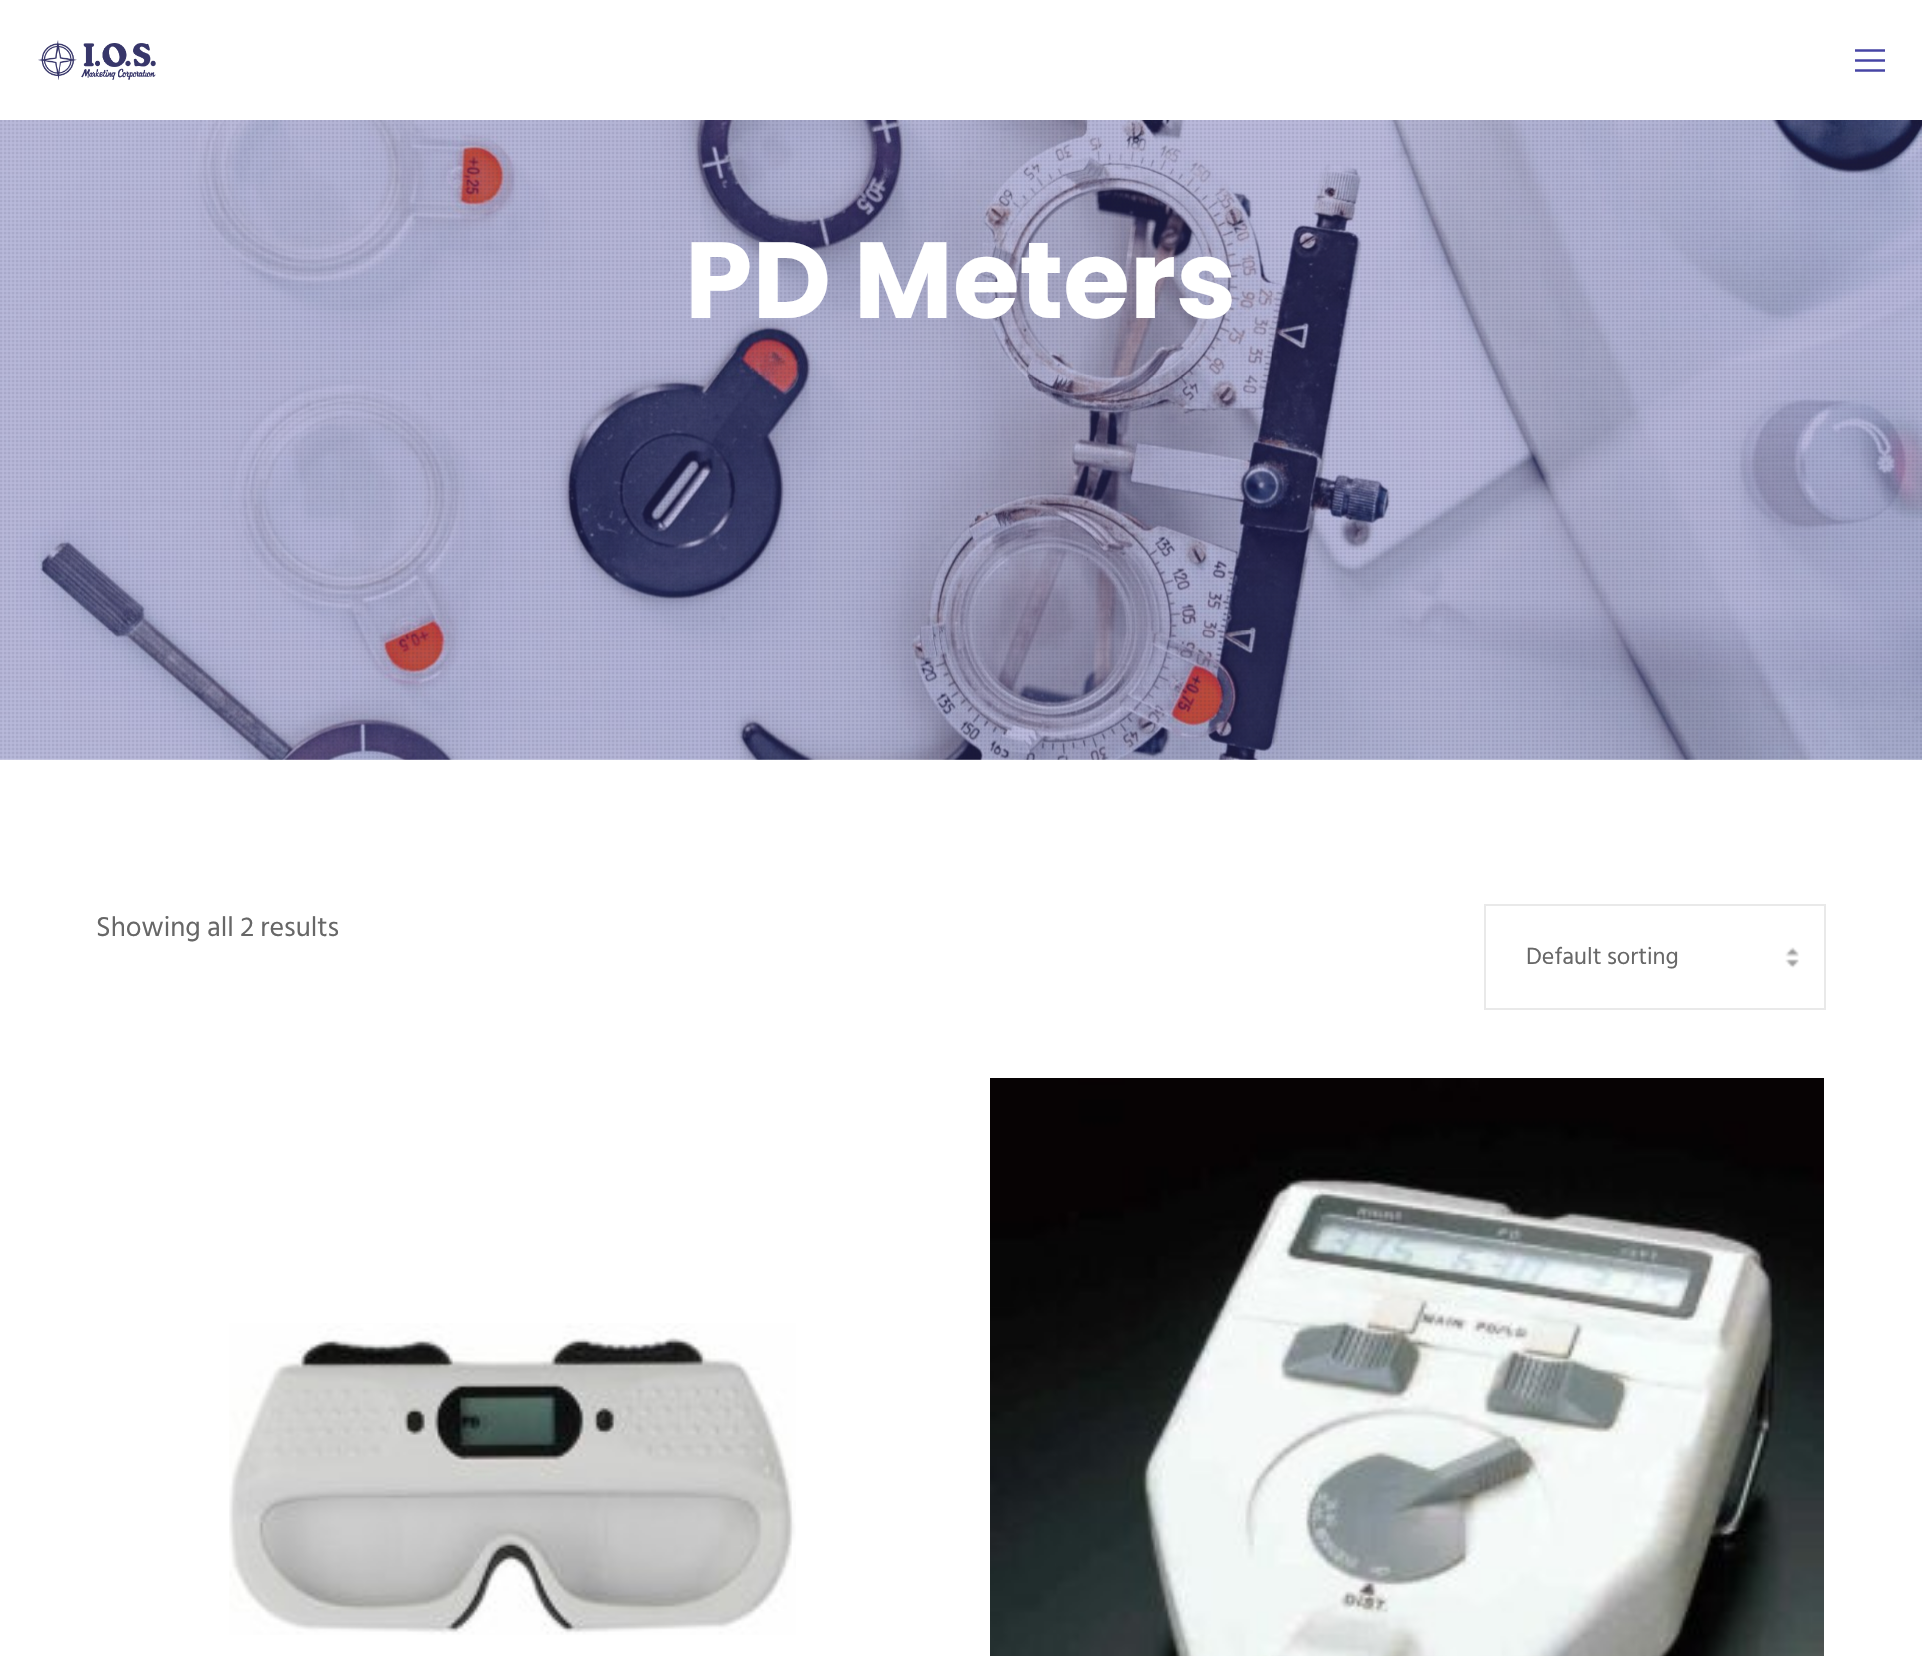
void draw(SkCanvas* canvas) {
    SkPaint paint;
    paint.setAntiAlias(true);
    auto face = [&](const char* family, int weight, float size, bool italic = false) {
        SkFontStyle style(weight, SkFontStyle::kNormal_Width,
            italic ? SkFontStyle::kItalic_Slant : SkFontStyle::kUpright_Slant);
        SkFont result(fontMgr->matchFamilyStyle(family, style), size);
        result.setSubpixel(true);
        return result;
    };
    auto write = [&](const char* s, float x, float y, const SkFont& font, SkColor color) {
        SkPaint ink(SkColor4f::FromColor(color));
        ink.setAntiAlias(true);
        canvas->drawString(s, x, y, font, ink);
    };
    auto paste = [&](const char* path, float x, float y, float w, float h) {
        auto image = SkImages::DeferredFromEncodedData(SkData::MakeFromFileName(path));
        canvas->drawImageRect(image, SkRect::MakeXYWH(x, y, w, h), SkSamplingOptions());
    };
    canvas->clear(SK_ColorWHITE);
    paste("pic1.png", 38, 40, 118, 40);
    paste("pic2.png", 1855, 49, 30, 23);
    paste("pic3.png", 0, 120, 1922, 640);
    paste("pic4.png", 0, 120, 1922, 640);
    auto kFont1 = face("Poppins", 700, 108);
    write("PD Meters", 685, 318, kFont1, SK_ColorWHITE);
    auto kFont2 = face("Hind Siliguri", 400, 28);
    write("Showing all 2 results", 96, 936, kFont2, SkColorSetRGB(103, 103, 103));
    paste("pic5.png", 1785, 947, 14, 21);
    paint.setStyle(SkPaint::kStroke_Style);
    paint.setStrokeWidth(2);
    paint.setColor(SkColorSetRGB(233, 233, 233));
    canvas->drawRect(SkRect::MakeXYWH(1485, 905, 340, 104), paint);
    auto kFont3 = face("Hind Siliguri", 400, 24);
    write("Default sorting", 1526, 964, kFont3, SkColorSetRGB(103, 103, 103));
    paste("pic6.png", 229, 1323, 567, 312);
    paste("pic7.png", 990, 1078, 834, 578);
}
